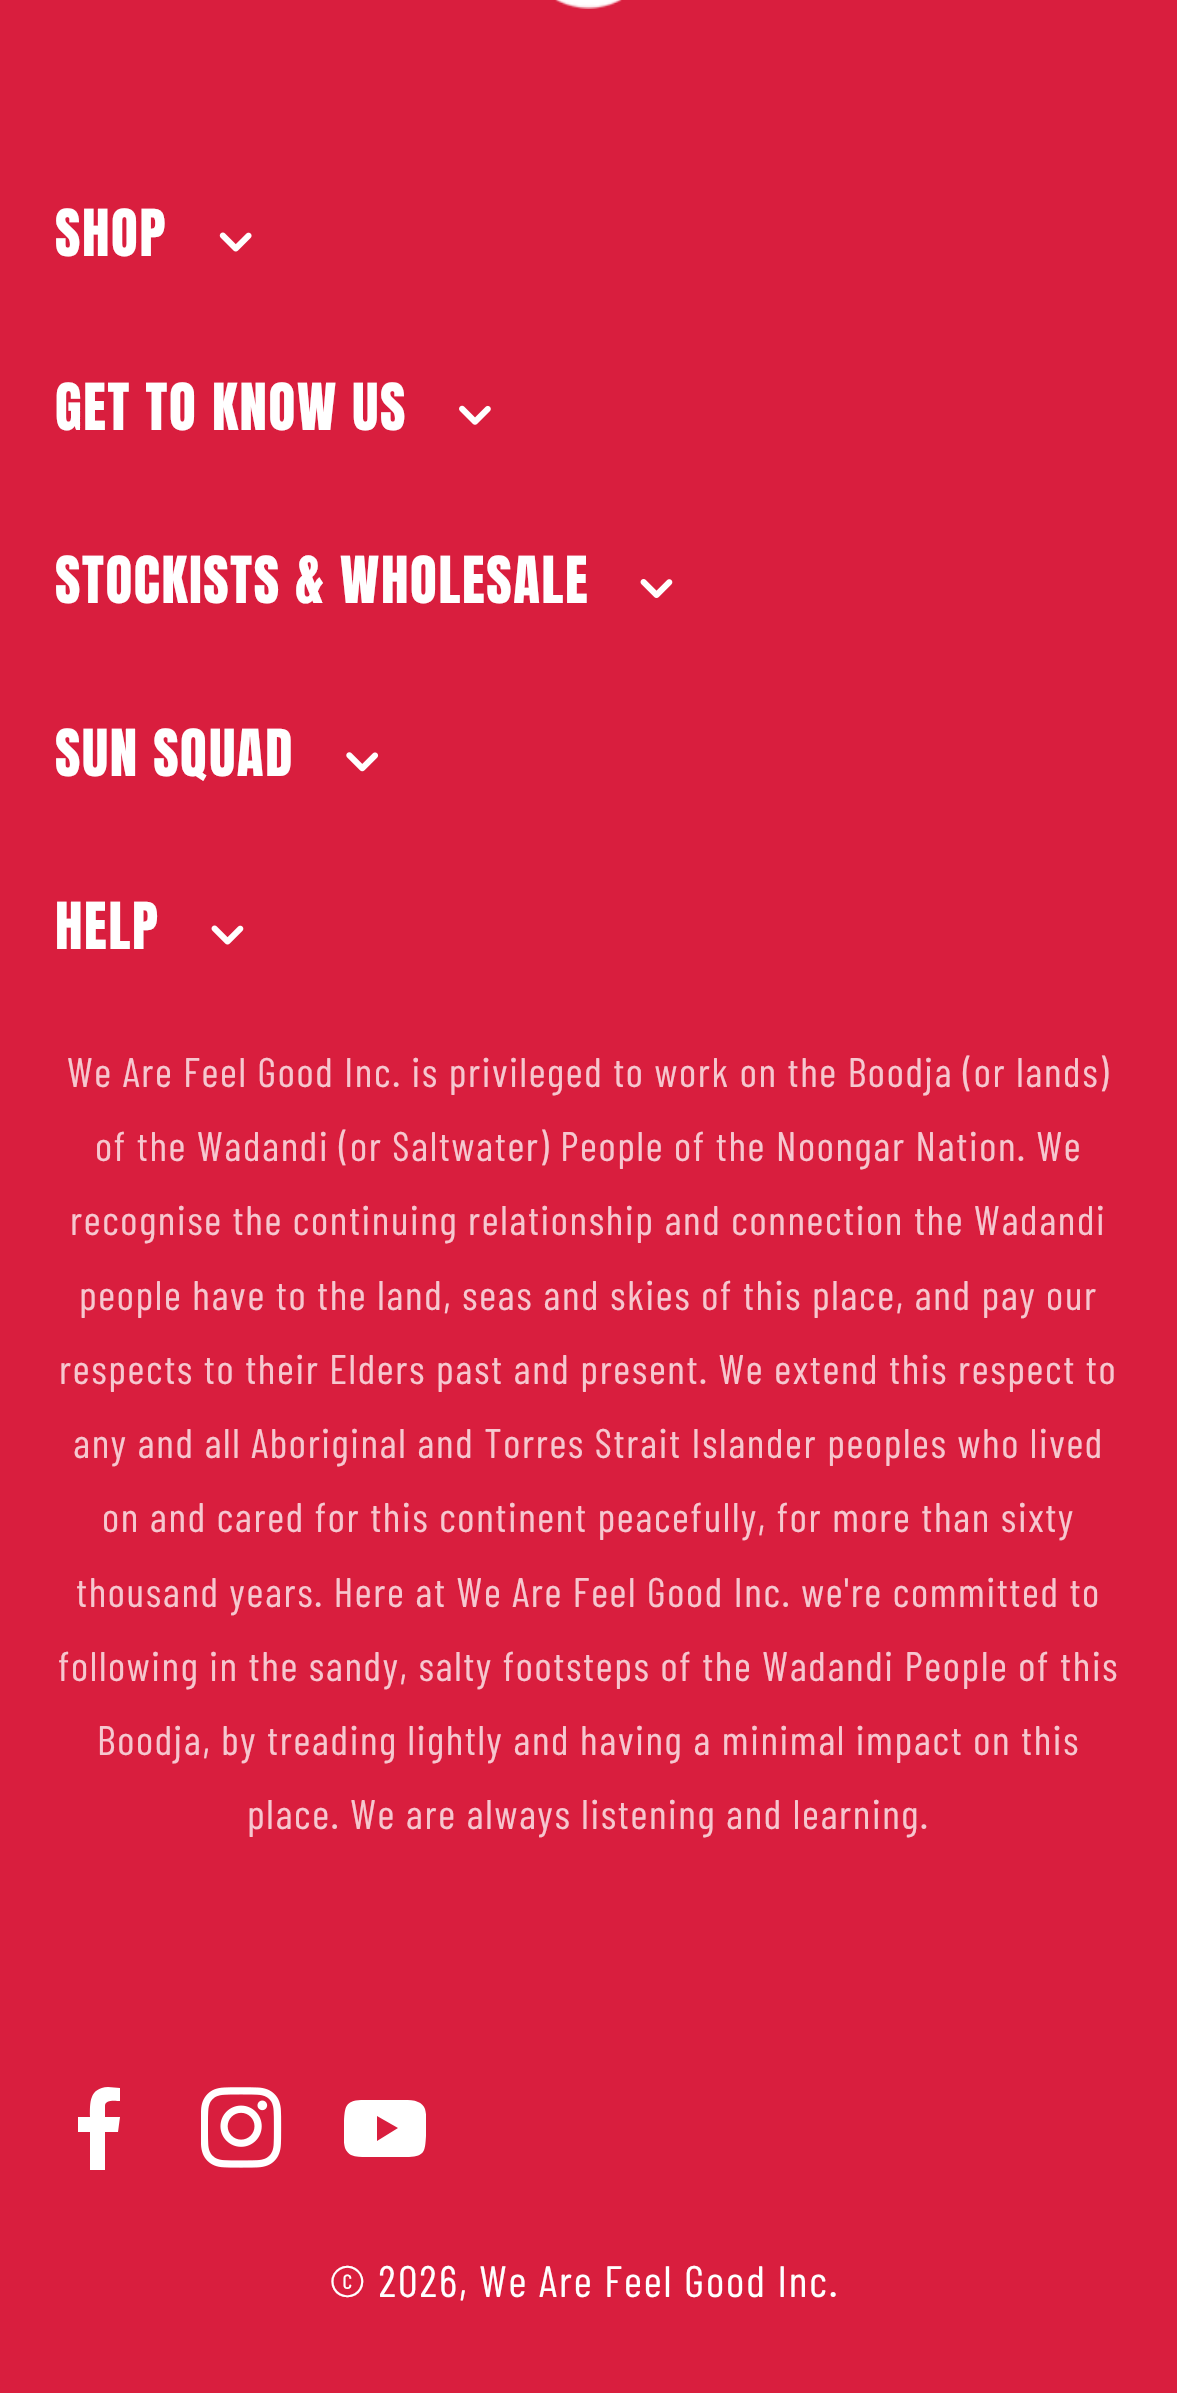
void draw(SkCanvas* canvas) {
    SkPaint paint;
    paint.setAntiAlias(true);
    auto face = [&](const char* family, int weight, float size, bool italic = false) {
        SkFontStyle style(weight, SkFontStyle::kNormal_Width,
            italic ? SkFontStyle::kItalic_Slant : SkFontStyle::kUpright_Slant);
        SkFont result(fontMgr->matchFamilyStyle(family, style), size);
        result.setSubpixel(true);
        return result;
    };
    auto writeSpaced = [&](const char* s, float x, float y, const SkFont& font, const SkPaint& ink, float letter, float word) {
        std::vector<SkGlyphID> glyphs(font.countText(s, strlen(s), SkTextEncoding::kUTF8));
        std::vector<float> xs(glyphs.size());
        font.textToGlyphs(s, strlen(s), SkTextEncoding::kUTF8, glyphs);
        font.getXPos(glyphs, xs, x);
        float extra = 0;
        for (size_t i = 0; i < glyphs.size(); i++) {
            xs[i] += extra;
            extra += letter + word * (glyphs[i] == font.unicharToGlyph(' '));
        }
        canvas->drawTextBlob(SkTextBlob::MakeFromPosHGlyphs(glyphs, xs, y, font), 0, 0, ink);
    };
    auto paste = [&](const char* path, float x, float y, float w, float h) {
        auto image = SkImages::DeferredFromEncodedData(SkData::MakeFromFileName(path));
        canvas->drawImageRect(image, SkRect::MakeXYWH(x, y, w, h), SkSamplingOptions());
    };
    canvas->clear(SkColorSetRGB(217, 30, 62));
    paste("pic1.png", 555, 0, 67, 9);
    auto kFont1 = face("Anton", 400, 55);
    paint.setColor(SK_ColorWHITE);
    writeSpaced("SHOP", 55, 256, kFont1, paint, 1.65f, 0);
    paste("pic2.png", 219, 232, 33, 20);
    writeSpaced("GET TO KNOW US", 55, 430, kFont1, paint, 1.65f, 0);
    paste("pic3.png", 459, 405, 32, 20);
    writeSpaced("STOCKISTS & WHOLESALE", 55, 603, kFont1, paint, 1.65f, 0);
    paste("pic4.png", 640, 579, 33, 19);
    writeSpaced("SUN SQUAD", 55, 776, kFont1, paint, 1.65f, 0);
    paste("pic5.png", 346, 752, 33, 20);
    writeSpaced("HELP", 55, 949, kFont1, paint, 1.65f, 0);
    paste("pic6.png", 211, 925, 33, 20);
    auto kFont2 = face("Barlow Condensed", 400, 41.25f);
    paint.setColor(SkColorSetRGB(246, 199, 207));
    writeSpaced("We Are Feel Good Inc. is privileged to work on the Boodja (or lands)", 67, 1087, kFont2, paint, 1.65f, 0);
    writeSpaced("of the Wadandi (or Saltwater) People of the Noongar Nation. We", 95, 1161, kFont2, paint, 1.65f, 0);
    writeSpaced("recognise the continuing relationship and connection the Wadandi", 70, 1235, kFont2, paint, 1.65f, 0);
    writeSpaced("people have to the land, seas and skies of this place, and pay our", 79, 1310, kFont2, paint, 1.65f, 0);
    writeSpaced("respects to their Elders past and present. We extend this respect to", 59, 1384, kFont2, paint, 1.65f, 0);
    writeSpaced("any and all Aboriginal and Torres Strait Islander peoples who lived", 73, 1458, kFont2, paint, 1.65f, 0);
    writeSpaced("on and cared for this continent peacefully, for more than sixty", 102, 1532, kFont2, paint, 1.65f, 0);
    writeSpaced("thousand years. Here at We Are Feel Good Inc. we're committed to", 76, 1607, kFont2, paint, 1.65f, 0);
    writeSpaced("following in the sandy, salty footsteps of the Wadandi People of this", 58, 1681, kFont2, paint, 1.65f, 0);
    writeSpaced("Boodja, by treading lightly and having a minimal impact on this", 97, 1755, kFont2, paint, 1.65f, 0);
    writeSpaced("place. We are always listening and learning.", 247, 1829, kFont2, paint, 1.65f, 0);
    paint.setColor(SK_ColorWHITE);
    canvas->drawPath(SkPathBuilder().moveTo(105, 2106).lineTo(105, 2117).lineTo(120, 2117).lineTo(118, 2132).lineTo(105, 2132).lineTo(105, 2170).lineTo(90, 2170).lineTo(90, 2132).lineTo(78, 2132).lineTo(78, 2117).lineTo(90, 2117).cubicTo(90, 2103, 89, 2088, 108, 2087).lineTo(120, 2088).lineTo(120, 2101).cubicTo(116, 2101, 105, 2099, 105, 2106).close().detach(), paint);
    paste("pic7.png", 201, 2087, 81, 81);
    canvas->save();
    canvas->clipRect(SkRect::MakeXYWH(344, 2087, 82, 83));
    canvas->drawPath(SkPathBuilder().moveTo(425, 2109).cubicTo(427, 2117, 427, 2127, 426, 2136).cubicTo(425, 2151, 425, 2156, 409, 2157).lineTo(386, 2157).lineTo(366, 2157).cubicTo(361, 2157, 356, 2157, 351, 2155).cubicTo(349, 2154, 346, 2151, 345, 2148).cubicTo(343, 2140, 343, 2130, 344, 2121).cubicTo(345, 2107, 345, 2101, 361, 2100).lineTo(384, 2100).lineTo(404, 2100).cubicTo(409, 2100, 414, 2100, 418, 2102).cubicTo(421, 2103, 424, 2106, 425, 2109).close().moveTo(377, 2141).lineTo(398, 2128).lineTo(377, 2116).close().detach(), paint);
    canvas->restore();
    auto kFont3 = face("Barlow Condensed", 400, 44);
    writeSpaced("© 2026, We Are Feel Good Inc.", 329, 2297, kFont3, paint, 1.9f, 0);
}
